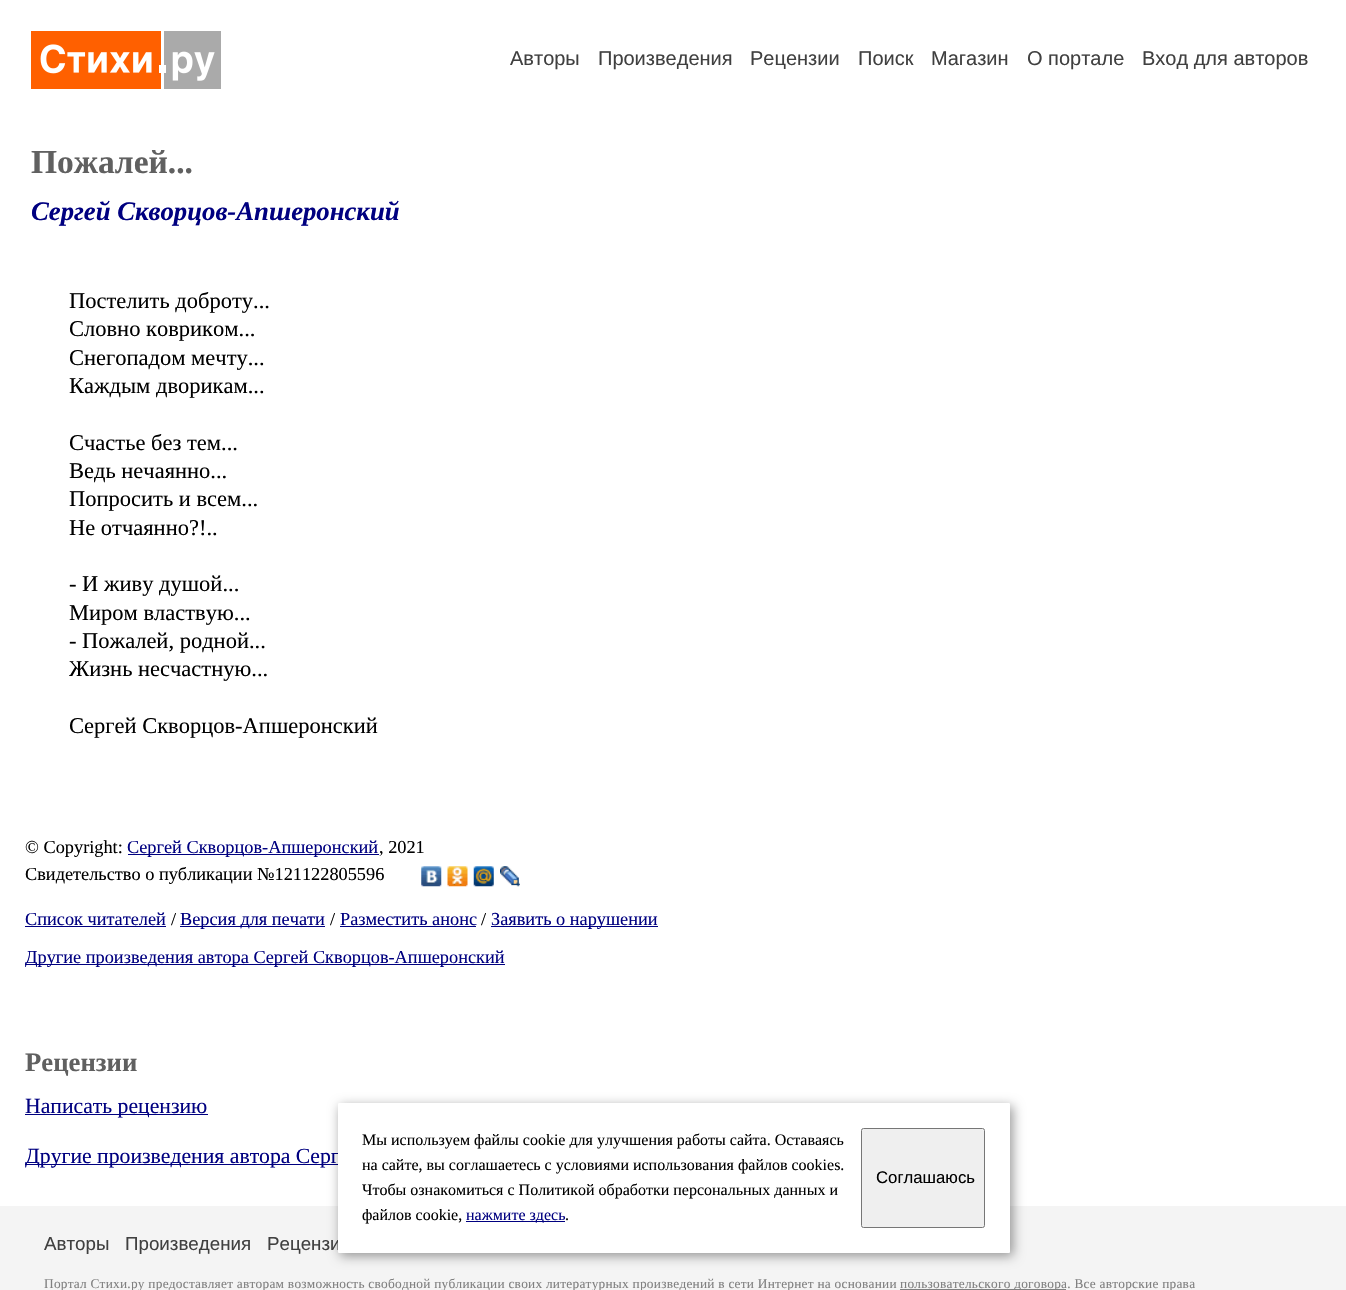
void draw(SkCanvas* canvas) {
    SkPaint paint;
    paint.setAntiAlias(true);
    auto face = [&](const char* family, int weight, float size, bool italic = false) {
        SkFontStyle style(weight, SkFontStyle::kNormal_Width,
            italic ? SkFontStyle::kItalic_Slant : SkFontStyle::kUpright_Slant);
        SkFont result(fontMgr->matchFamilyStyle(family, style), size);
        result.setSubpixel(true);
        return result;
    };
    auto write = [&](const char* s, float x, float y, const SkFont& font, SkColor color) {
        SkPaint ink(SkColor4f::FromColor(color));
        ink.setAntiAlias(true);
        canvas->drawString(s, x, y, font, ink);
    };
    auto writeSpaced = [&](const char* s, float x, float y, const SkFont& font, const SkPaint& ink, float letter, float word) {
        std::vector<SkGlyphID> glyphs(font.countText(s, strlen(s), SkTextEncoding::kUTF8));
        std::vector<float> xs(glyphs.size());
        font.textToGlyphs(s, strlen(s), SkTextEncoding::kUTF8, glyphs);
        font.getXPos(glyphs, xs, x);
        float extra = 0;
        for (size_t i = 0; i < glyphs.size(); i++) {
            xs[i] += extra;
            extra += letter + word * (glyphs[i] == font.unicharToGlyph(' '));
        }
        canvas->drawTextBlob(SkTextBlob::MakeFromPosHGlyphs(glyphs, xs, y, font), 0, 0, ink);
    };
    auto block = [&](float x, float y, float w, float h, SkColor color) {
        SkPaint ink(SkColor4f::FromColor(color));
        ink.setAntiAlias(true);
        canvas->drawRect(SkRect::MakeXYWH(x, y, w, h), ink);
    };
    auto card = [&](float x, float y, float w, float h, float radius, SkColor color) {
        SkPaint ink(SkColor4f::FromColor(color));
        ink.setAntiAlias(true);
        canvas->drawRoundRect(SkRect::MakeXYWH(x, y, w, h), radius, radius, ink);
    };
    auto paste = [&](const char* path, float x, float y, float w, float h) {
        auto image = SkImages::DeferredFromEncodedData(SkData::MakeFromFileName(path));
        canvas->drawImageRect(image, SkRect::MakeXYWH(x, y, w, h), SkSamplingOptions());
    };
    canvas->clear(SK_ColorWHITE);
    paste("pic1.png", 31, 31, 190, 58);
    auto kFont1 = face("Liberation Sans", 400, 20);
    write("Авторы", 510, 65, kFont1, SkColorSetRGB(64, 64, 64));
    write("Произведения", 598, 65, kFont1, SkColorSetRGB(64, 64, 64));
    write("Рецензии", 750, 65, kFont1, SkColorSetRGB(64, 64, 64));
    write("Поиск", 858, 65, kFont1, SkColorSetRGB(64, 64, 64));
    write("Магазин", 931, 65, kFont1, SkColorSetRGB(64, 64, 64));
    write("О портале", 1027, 65, kFont1, SkColorSetRGB(64, 64, 64));
    write("Вход для авторов", 1142, 65, kFont1, SkColorSetRGB(64, 64, 64));
    auto kFont2 = face("Liberation Serif", 700, 33.5f);
    write("Пожалей...", 31, 173, kFont2, SkColorSetRGB(96, 96, 96));
    auto kFont3 = face("Liberation Serif", 700, 26.7f, true);
    write("Сергей Скворцов-Апшеронский", 31, 220, kFont3, SkColorSetRGB(0, 0, 128));
    auto kFont4 = face("Liberation Serif", 400, 22.5f);
    write("Постелить доброту...", 69, 308, kFont4, SK_ColorBLACK);
    write("Словно ковриком...", 69, 336, kFont4, SK_ColorBLACK);
    write("Снегопадом мечту...", 69, 365, kFont4, SK_ColorBLACK);
    write("Каждым дворикам...", 69, 393, kFont4, SK_ColorBLACK);
    write("Счастье без тем...", 69, 450, kFont4, SK_ColorBLACK);
    write("Ведь нечаянно...", 69, 478, kFont4, SK_ColorBLACK);
    write("Попросить и всем...", 69, 506, kFont4, SK_ColorBLACK);
    write("Не отчаянно?!..", 69, 535, kFont4, SK_ColorBLACK);
    write("- И живу душой...", 69, 591, kFont4, SK_ColorBLACK);
    write("Миром властвую...", 69, 620, kFont4, SK_ColorBLACK);
    write("- Пожалей, родной...", 69, 648, kFont4, SK_ColorBLACK);
    write("Жизнь несчастную...", 69, 676, kFont4, SK_ColorBLACK);
    write("Сергей Скворцов-Апшеронский", 69, 733, kFont4, SK_ColorBLACK);
    auto kFont5 = face("Liberation Serif", 400, 18.3f);
    write("© Copyright:", 25, 853, kFont5, SK_ColorBLACK);
    block(128, 854, 251, 1, SkColorSetRGB(0, 0, 128));
    write("Сергей Скворцов-Апшеронский", 127, 853, kFont5, SkColorSetRGB(0, 0, 128));
    write(", 2021", 379, 853, kFont5, SK_ColorBLACK);
    write("Свидетельство о публикации №121122805596", 25, 880, kFont5, SK_ColorBLACK);
    paste("pic2.png", 421, 866, 21, 21);
    paste("pic3.png", 447, 866, 21, 21);
    paste("pic4.png", 473, 866, 21, 21);
    paste("pic5.png", 500, 866, 20, 21);
    write("Список читателей", 25, 925, kFont5, SkColorSetRGB(0, 0, 128));
    block(25, 926, 141, 1, SkColorSetRGB(0, 0, 128));
    write("/", 171, 925, kFont5, SK_ColorBLACK);
    block(180, 926, 145, 1, SkColorSetRGB(0, 0, 128));
    write("Версия для печати", 180, 925, kFont5, SkColorSetRGB(0, 0, 128));
    write("/", 330, 925, kFont5, SK_ColorBLACK);
    write("Разместить анонс", 340, 925, kFont5, SkColorSetRGB(0, 0, 128));
    block(340, 926, 136, 1, SkColorSetRGB(0, 0, 128));
    write("/", 481, 925, kFont5, SK_ColorBLACK);
    block(491, 926, 167, 1, SkColorSetRGB(0, 0, 128));
    write("Заявить о нарушении", 491, 925, kFont5, SkColorSetRGB(0, 0, 128));
    block(25, 964, 480, 1, SkColorSetRGB(0, 0, 128));
    write("Другие произведения автора Сергей Скворцов-Апшеронский", 25, 963, kFont5, SkColorSetRGB(0, 0, 128));
    auto kFont6 = face("Liberation Serif", 700, 26.7f);
    write("Рецензии", 25, 1071, kFont6, SkColorSetRGB(96, 96, 96));
    block(25, 1114, 183, 1, SkColorSetRGB(0, 0, 128));
    auto kFont7 = face("Liberation Serif", 400, 21.7f);
    write("Написать рецензию", 25, 1113, kFont7, SkColorSetRGB(0, 0, 128));
    block(25, 1164, 313, 1, SkColorSetRGB(0, 0, 128));
    write("Другие произведения автора Серг", 25, 1163, kFont7, SkColorSetRGB(0, 0, 128));
    block(0, 1206, 1346, 84, SkColorSetRGB(244, 244, 244));
    paint.setColor(SkColorSetARGB(102, 0, 0, 0));
    paint.setMaskFilter(SkMaskFilter::MakeBlur(kNormal_SkBlurStyle, 6));
    canvas->drawRoundRect(SkRect::MakeXYWH(340, 1106, 673, 150), 1, 1, paint);
    paint.setMaskFilter(nullptr);
    auto kFont8 = face("Liberation Sans", 400, 18.75f);
    write("Рецензи", 267, 1250, kFont8, SkColorSetRGB(64, 64, 64));
    card(338, 1103, 672, 150, 1, SK_ColorWHITE);
    auto kFont9 = face("Liberation Serif", 400, 16);
    write("Мы используем файлы cookie для улучшения работы сайта. Оставаясь", 362, 1145, kFont9, SK_ColorBLACK);
    write("на сайте, вы соглашаетесь с условиями использования файлов cookies.", 362, 1170, kFont9, SK_ColorBLACK);
    write("Чтобы ознакомиться с Политикой обработки персональных данных и", 362, 1195, kFont9, SK_ColorBLACK);
    write("файлов cookie,", 362, 1220, kFont9, SK_ColorBLACK);
    block(466, 1221, 99, 1, SkColorSetRGB(0, 0, 128));
    write("нажмите здесь", 466, 1220, kFont9, SkColorSetRGB(0, 0, 128));
    write(".", 565, 1220, kFont9, SK_ColorBLACK);
    paint.setColor(SkColorSetRGB(239, 239, 239));
    canvas->drawRoundRect(SkRect::MakeXYWH(861.5f, 1128.5f, 123, 99), 2, 2, paint);
    paint.setStyle(SkPaint::kStroke_Style);
    paint.setStrokeWidth(1);
    paint.setColor(SkColorSetRGB(118, 118, 118));
    canvas->drawRoundRect(SkRect::MakeXYWH(861.5f, 1128.5f, 123, 99), 2, 2, paint);
    auto kFont10 = face("Liberation Sans", 400, 16.75f);
    write("Соглашаюсь", 876, 1183, kFont10, SK_ColorBLACK);
    write("Авторы", 44, 1250, kFont8, SkColorSetRGB(64, 64, 64));
    write("Произведения", 125, 1250, kFont8, SkColorSetRGB(64, 64, 64));
    auto kFont11 = face("Liberation Serif", 400, 13.33f);
    paint.setStyle(SkPaint::kFill_Style);
    paint.setColor(SkColorSetRGB(128, 128, 128));
    writeSpaced("Портал Стихи.ру предоставляет авторам возможность свободной публикации своих литературных произведений в сети Интернет на основании", 44, 1288, kFont11, paint, 0.25f, 0);
    block(900, 1289, 166, 1, SkColorSetRGB(128, 128, 128));
    writeSpaced("пользовательского договора. Все авторские права", 900, 1288, kFont11, paint, 0.25f, 0);
}
